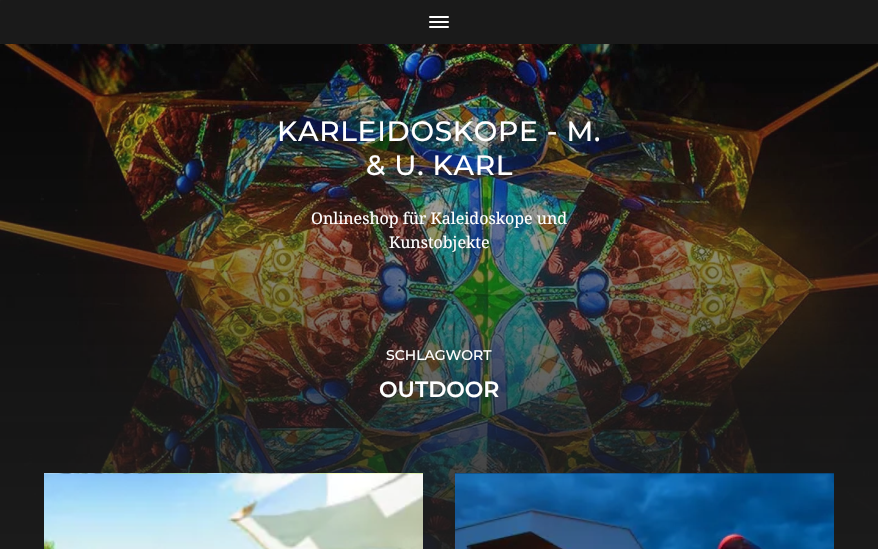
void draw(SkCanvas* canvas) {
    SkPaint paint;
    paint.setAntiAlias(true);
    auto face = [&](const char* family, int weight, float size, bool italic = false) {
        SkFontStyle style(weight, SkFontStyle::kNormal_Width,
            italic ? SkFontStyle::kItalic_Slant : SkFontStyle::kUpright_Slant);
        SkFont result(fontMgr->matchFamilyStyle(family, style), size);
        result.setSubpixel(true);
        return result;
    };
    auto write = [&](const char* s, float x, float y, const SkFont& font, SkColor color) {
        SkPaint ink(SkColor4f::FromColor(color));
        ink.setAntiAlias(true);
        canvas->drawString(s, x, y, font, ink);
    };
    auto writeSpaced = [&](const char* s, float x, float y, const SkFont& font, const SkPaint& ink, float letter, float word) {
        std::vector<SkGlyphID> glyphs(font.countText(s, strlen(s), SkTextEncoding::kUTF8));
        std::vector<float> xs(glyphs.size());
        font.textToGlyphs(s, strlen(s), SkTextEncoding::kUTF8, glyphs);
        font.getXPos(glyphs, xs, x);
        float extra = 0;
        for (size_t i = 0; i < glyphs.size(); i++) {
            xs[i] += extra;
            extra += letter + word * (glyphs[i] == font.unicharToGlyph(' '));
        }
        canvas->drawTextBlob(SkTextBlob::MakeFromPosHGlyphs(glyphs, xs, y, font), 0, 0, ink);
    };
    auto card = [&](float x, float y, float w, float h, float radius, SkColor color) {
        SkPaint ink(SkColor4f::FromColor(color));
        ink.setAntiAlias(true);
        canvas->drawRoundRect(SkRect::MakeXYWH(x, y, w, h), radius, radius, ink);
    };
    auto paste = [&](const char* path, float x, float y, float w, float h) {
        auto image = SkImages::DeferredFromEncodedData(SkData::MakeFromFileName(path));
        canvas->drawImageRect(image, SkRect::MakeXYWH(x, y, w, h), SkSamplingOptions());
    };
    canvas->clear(SkColorSetRGB(29, 29, 29));
    card(0, 0, 878, 44, 3, SkColorSetRGB(26, 26, 26));
    card(429, 16, 20, 2, 1, SK_ColorWHITE);
    card(429, 21, 20, 2, 1, SK_ColorWHITE);
    card(429, 26, 20, 2, 1, SK_ColorWHITE);
    paste("pic1.png", 0, 44, 878, 505);
    auto kFont1 = face("Montserrat", 100, 28);
    paint.setColor(SK_ColorWHITE);
    writeSpaced("KARLEIDOSKOPE - M.", 277, 141, kFont1, paint, 0.75f, 0);
    writeSpaced("& U. KARL", 366, 175, kFont1, paint, 0.75f, 0);
    auto kFont2 = face("Droid Serif", 400, 16);
    write("Onlineshop für Kaleidoskope und", 311, 224, kFont2, SK_ColorWHITE);
    write("Kunstobjekte", 389, 248, kFont2, SK_ColorWHITE);
    auto kFont3 = face("Montserrat", 100, 14);
    write("SCHLAGWORT", 386, 360, kFont3, SK_ColorWHITE);
    auto kFont4 = face("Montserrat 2", 100, 22);
    write("OUTDOOR", 379, 397, kFont4, SK_ColorWHITE);
    paste("pic2.png", 44, 473, 379, 76);
    paste("pic3.png", 455, 473, 379, 76);
}
